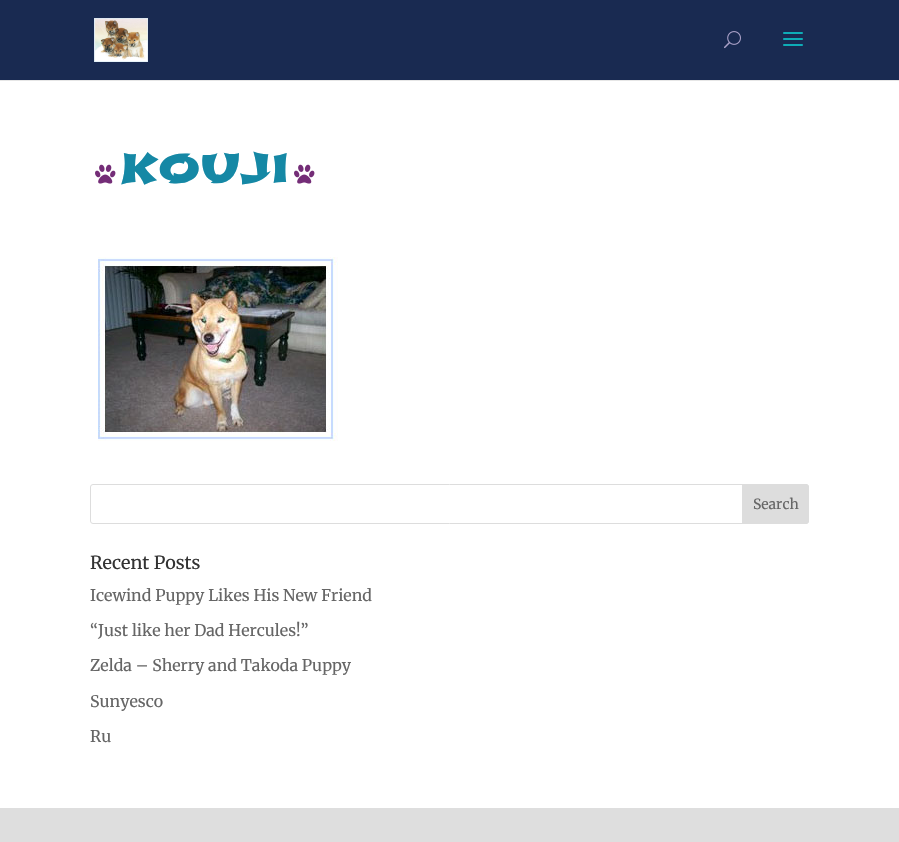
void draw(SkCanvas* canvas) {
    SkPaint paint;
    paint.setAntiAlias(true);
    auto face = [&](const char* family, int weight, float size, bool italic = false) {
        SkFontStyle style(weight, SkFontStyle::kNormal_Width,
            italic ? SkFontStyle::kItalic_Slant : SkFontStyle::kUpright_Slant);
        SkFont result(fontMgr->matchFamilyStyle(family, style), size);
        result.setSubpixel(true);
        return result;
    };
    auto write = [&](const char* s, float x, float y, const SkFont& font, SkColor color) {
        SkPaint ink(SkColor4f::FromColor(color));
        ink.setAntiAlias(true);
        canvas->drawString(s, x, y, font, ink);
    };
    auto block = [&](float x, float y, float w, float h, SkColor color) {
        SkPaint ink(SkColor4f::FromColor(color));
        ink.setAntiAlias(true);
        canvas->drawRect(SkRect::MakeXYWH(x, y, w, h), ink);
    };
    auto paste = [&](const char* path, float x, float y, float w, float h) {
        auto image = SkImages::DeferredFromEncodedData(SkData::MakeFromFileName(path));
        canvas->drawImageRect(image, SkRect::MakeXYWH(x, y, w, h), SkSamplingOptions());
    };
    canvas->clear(SK_ColorWHITE);
    block(0, 80, 899, 1, SkColorSetRGB(230, 230, 230));
    block(0, 0, 899, 80, SkColorSetRGB(25, 42, 81));
    paste("pic1.png", 94, 18, 54, 44);
    paste("pic2.png", 724, 31, 17, 18);
    paste("pic3.png", 783, 32, 20, 14);
    paste("pic4.png", 95, 164, 21, 20);
    auto kFont1 = face("Shojumaru", 400, 50);
    write("kouji", 120, 182, kFont1, SkColorSetRGB(21, 136, 165));
    paste("pic4.png", 294, 164, 21, 20);
    paste("pic5.png", 98, 257, 240, 184);
    paint.setStyle(SkPaint::kStroke_Style);
    paint.setStrokeWidth(1);
    paint.setColor(SkColorSetRGB(221, 221, 221));
    canvas->drawRoundRect(SkRect::MakeXYWH(90.5f, 484.5f, 718, 39), 2.5f, 2.5f, paint);
    paint.setStyle(SkPaint::kFill_Style);
    canvas->drawPath(SkPathBuilder().moveTo(742.5f, 484.5f).lineTo(806, 484.5f).cubicTo(807.5f, 484.5f, 808.5f, 485.5f, 808.5f, 487).lineTo(808.5f, 521).cubicTo(808.5f, 522.5f, 807.5f, 523.5f, 806, 523.5f).lineTo(742.5f, 523.5f).close().detach(), paint);
    paint.setStyle(SkPaint::kStroke_Style);
    canvas->drawPath(SkPathBuilder().moveTo(742.5f, 484.5f).lineTo(806, 484.5f).cubicTo(807.5f, 484.5f, 808.5f, 485.5f, 808.5f, 487).lineTo(808.5f, 521).cubicTo(808.5f, 522.5f, 807.5f, 523.5f, 806, 523.5f).lineTo(742.5f, 523.5f).close().detach(), paint);
    auto kFont2 = face("Merriweather", 300, 14);
    write("Search", 753, 509, kFont2, SkColorSetRGB(102, 102, 102));
    auto kFont3 = face("Merriweather", 300, 18);
    write("Recent Posts", 90, 569, kFont3, SkColorSetRGB(51, 51, 51));
    auto kFont4 = face("Merriweather", 300, 16);
    write("Icewind Puppy Likes His New Friend", 90, 601, kFont4, SkColorSetRGB(102, 102, 102));
    write("“Just like her Dad Hercules!”", 90, 636, kFont4, SkColorSetRGB(102, 102, 102));
    write("Zelda – Sherry and Takoda Puppy", 90, 671, kFont4, SkColorSetRGB(102, 102, 102));
    write("Sunyesco", 90, 707, kFont4, SkColorSetRGB(102, 102, 102));
    write("Ru", 90, 742, kFont4, SkColorSetRGB(102, 102, 102));
    block(0, 808, 899, 34, SkColorSetRGB(222, 222, 222));
}
